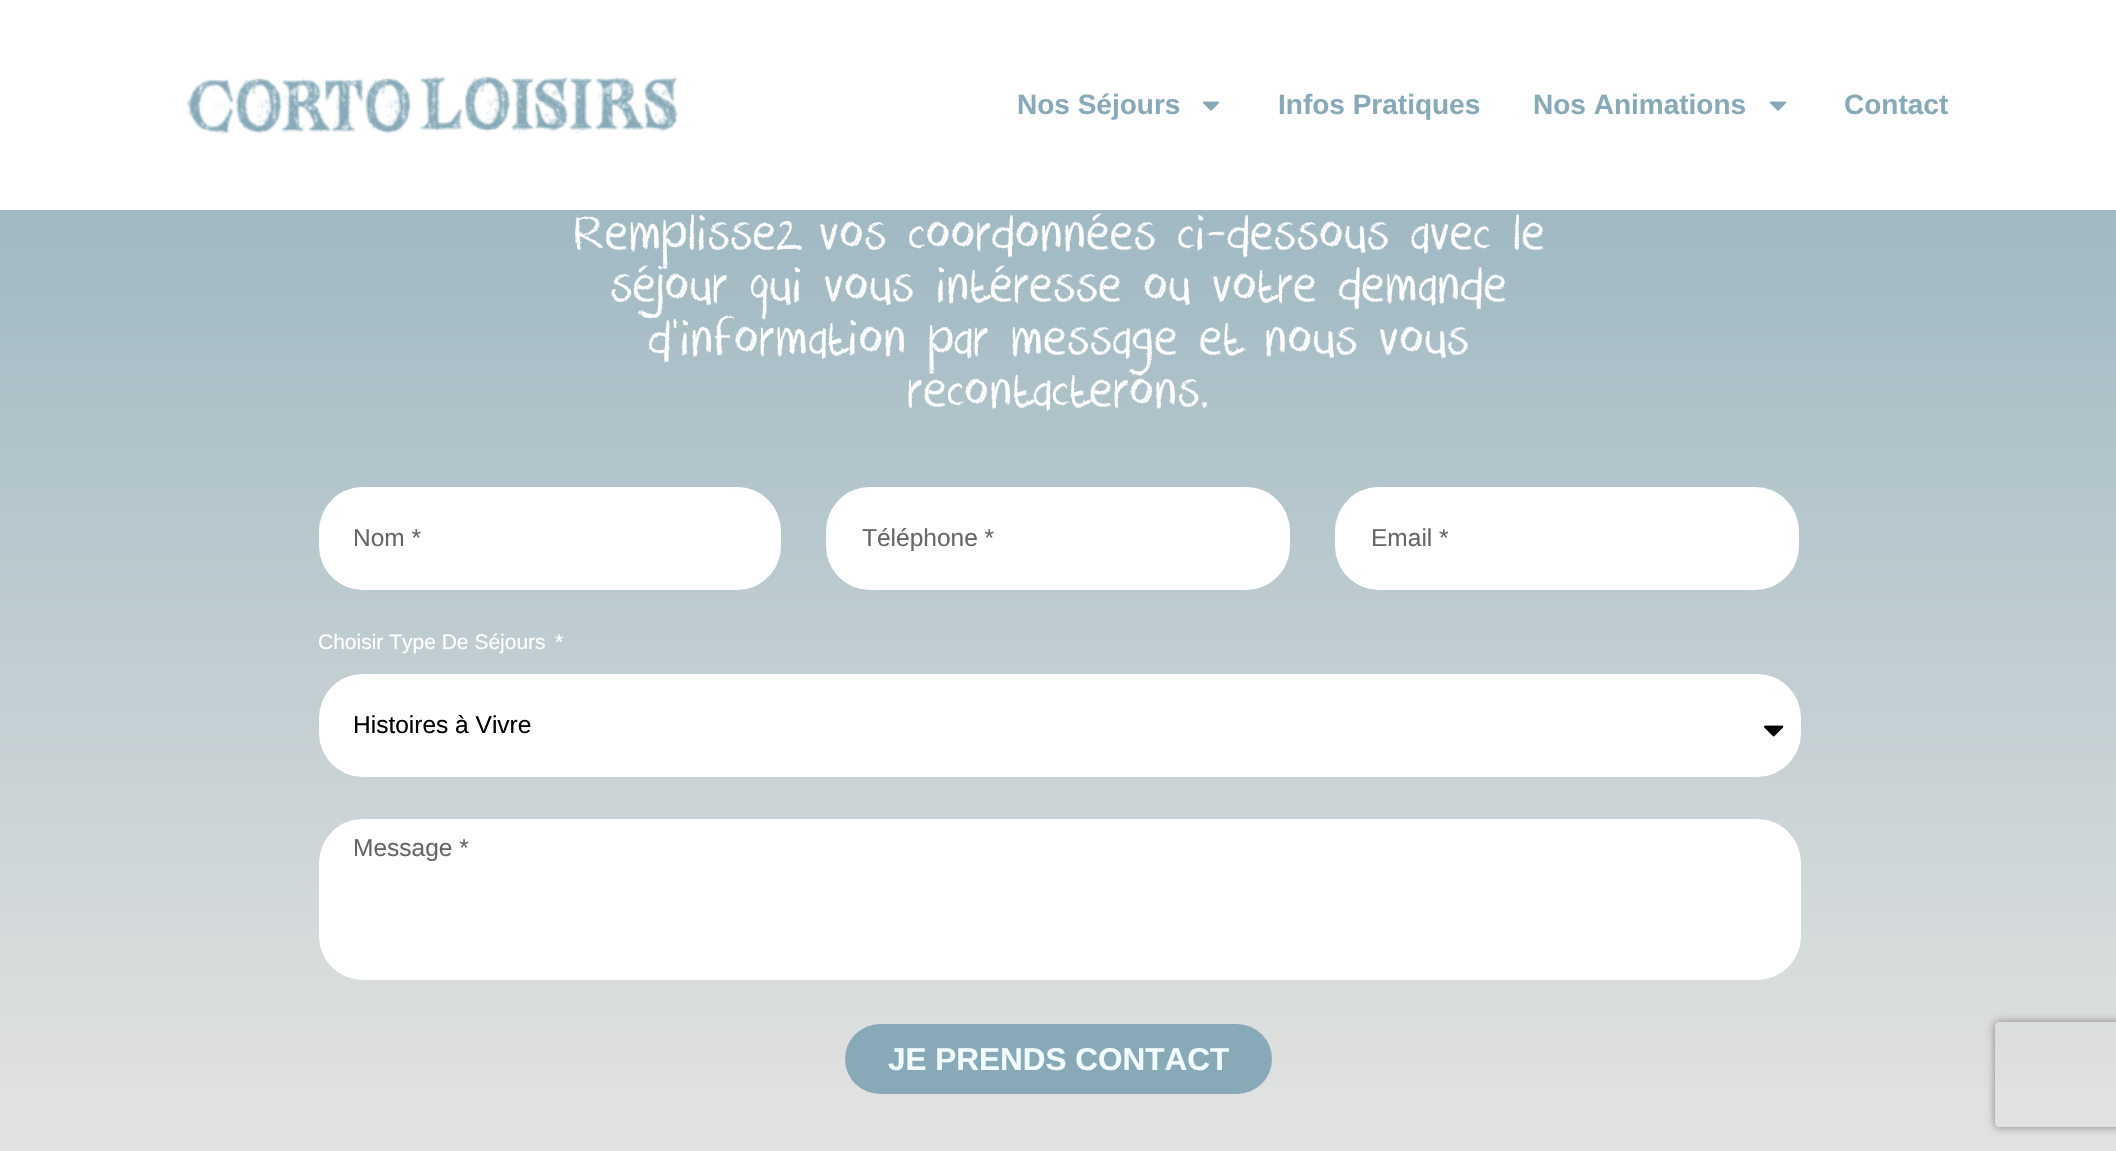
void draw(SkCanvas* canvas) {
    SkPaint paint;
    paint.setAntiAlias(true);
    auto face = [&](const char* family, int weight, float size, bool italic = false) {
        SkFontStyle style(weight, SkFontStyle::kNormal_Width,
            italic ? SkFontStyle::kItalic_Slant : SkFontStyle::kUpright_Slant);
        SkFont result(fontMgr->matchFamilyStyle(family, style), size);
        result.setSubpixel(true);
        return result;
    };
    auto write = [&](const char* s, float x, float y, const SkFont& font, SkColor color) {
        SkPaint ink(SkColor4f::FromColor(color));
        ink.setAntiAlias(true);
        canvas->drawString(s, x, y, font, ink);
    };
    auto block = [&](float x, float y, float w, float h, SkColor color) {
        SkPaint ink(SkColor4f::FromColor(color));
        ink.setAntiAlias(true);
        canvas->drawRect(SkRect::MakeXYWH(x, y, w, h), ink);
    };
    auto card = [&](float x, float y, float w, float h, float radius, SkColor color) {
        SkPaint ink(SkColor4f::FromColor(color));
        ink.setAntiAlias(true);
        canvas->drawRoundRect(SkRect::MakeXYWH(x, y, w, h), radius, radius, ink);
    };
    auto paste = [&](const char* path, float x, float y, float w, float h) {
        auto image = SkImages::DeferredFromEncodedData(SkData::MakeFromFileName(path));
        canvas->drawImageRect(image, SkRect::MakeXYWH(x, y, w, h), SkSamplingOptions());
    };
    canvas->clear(SK_ColorWHITE);
    paste("pic1.png", 186, 75, 492, 60);
    auto kFont1 = face("Liberation Sans", 700, 28);
    write("Nos Séjours", 1017, 114, kFont1, SkColorSetRGB(136, 170, 184));
    paste("pic2.png", 1202, 101, 18, 10);
    write("Infos Pratiques", 1278, 114, kFont1, SkColorSetRGB(136, 170, 184));
    write("Nos Animations", 1533, 114, kFont1, SkColorSetRGB(136, 170, 184));
    paste("pic2.png", 1769, 101, 18, 10);
    write("Contact", 1844, 114, kFont1, SkColorSetRGB(136, 170, 184));
    {
        const SkColor colors[] = {SkColorSetRGB(136, 170, 184), SkColorSetRGB(224, 225, 224)};
        const float stops[] = {0, 1};
        const SkPoint ends[] = {{1059, -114}, {1059, 1094}};
        paint.setShader(SkGradientShader::MakeLinear(ends, colors, stops, 2, SkTileMode::kClamp));
        paint.setAlpha(255);
    }
    canvas->drawRect(SkRect::MakeXYWH(0, 210, 2116, 884), paint);
    auto kFont2 = face("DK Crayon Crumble", 400, 56, true);
    write("Remplissez vos coordonnées ci-dessous avec le", 573, 250, kFont2, SK_ColorWHITE);
    write("séjour qui vous intéresse ou votre demande", 610, 302, kFont2, SK_ColorWHITE);
    write("d’information par message et nous vous", 648, 355, kFont2, SK_ColorWHITE);
    write("recontacterons.", 907, 407, kFont2, SK_ColorWHITE);
    card(319, 487, 462, 103, 44, SK_ColorWHITE);
    auto kFont3 = face("Liberation Sans", 400, 24.5f);
    write("Nom *", 353, 546, kFont3, SkColorSetRGB(102, 102, 102));
    card(826, 487, 464, 103, 44, SK_ColorWHITE);
    write("Téléphone *", 862, 546, kFont3, SkColorSetRGB(102, 102, 102));
    card(1335, 487, 464, 103, 44, SK_ColorWHITE);
    write("Email *", 1371, 546, kFont3, SkColorSetRGB(102, 102, 102));
    auto kFont4 = face("Liberation Sans", 400, 21);
    write("Choisir Type De Séjours", 318, 649, kFont4, SK_ColorWHITE);
    write("*", 555, 649, kFont4, SK_ColorWHITE);
    card(319, 674, 1482, 103, 44, SK_ColorWHITE);
    write("Histoires à Vivre", 353, 733, kFont3, SK_ColorBLACK);
    paste("pic3.png", 1764, 725, 20, 12);
    card(319, 819, 1482, 161, 44, SK_ColorWHITE);
    write("Message *", 353, 856, kFont3, SkColorSetRGB(102, 102, 102));
    card(845, 1024, 427, 70, 35, SkColorSetRGB(136, 170, 184));
    auto kFont5 = face("Liberation Sans", 700, 31.5f);
    write("JE PRENDS CONTACT", 888, 1070, kFont5, SkColorSetRGB(242, 252, 254));
    block(0, 1094, 2116, 57, SkColorSetRGB(224, 225, 224));
    canvas->save();
    canvas->clipPath(SkPathBuilder(SkPathFillType::kEvenOdd).moveTo(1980, 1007).lineTo(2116, 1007).lineTo(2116, 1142).lineTo(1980, 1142).close().moveTo(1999, 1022).lineTo(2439, 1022).cubicTo(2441, 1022, 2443, 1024, 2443, 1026).lineTo(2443, 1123).cubicTo(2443, 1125, 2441, 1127, 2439, 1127).lineTo(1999, 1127).cubicTo(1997, 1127, 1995, 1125, 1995, 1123).lineTo(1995, 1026).cubicTo(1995, 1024, 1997, 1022, 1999, 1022).close().detach(), true);
    paint.setShader(nullptr);
    paint.setColor(SkColorSetRGB(128, 128, 128));
    paint.setMaskFilter(SkMaskFilter::MakeBlur(kNormal_SkBlurStyle, 4.5f));
    canvas->drawRoundRect(SkRect::MakeXYWH(1995, 1022, 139, 105), 4, 4, paint);
    paint.setMaskFilter(nullptr);
    canvas->restore();
}
